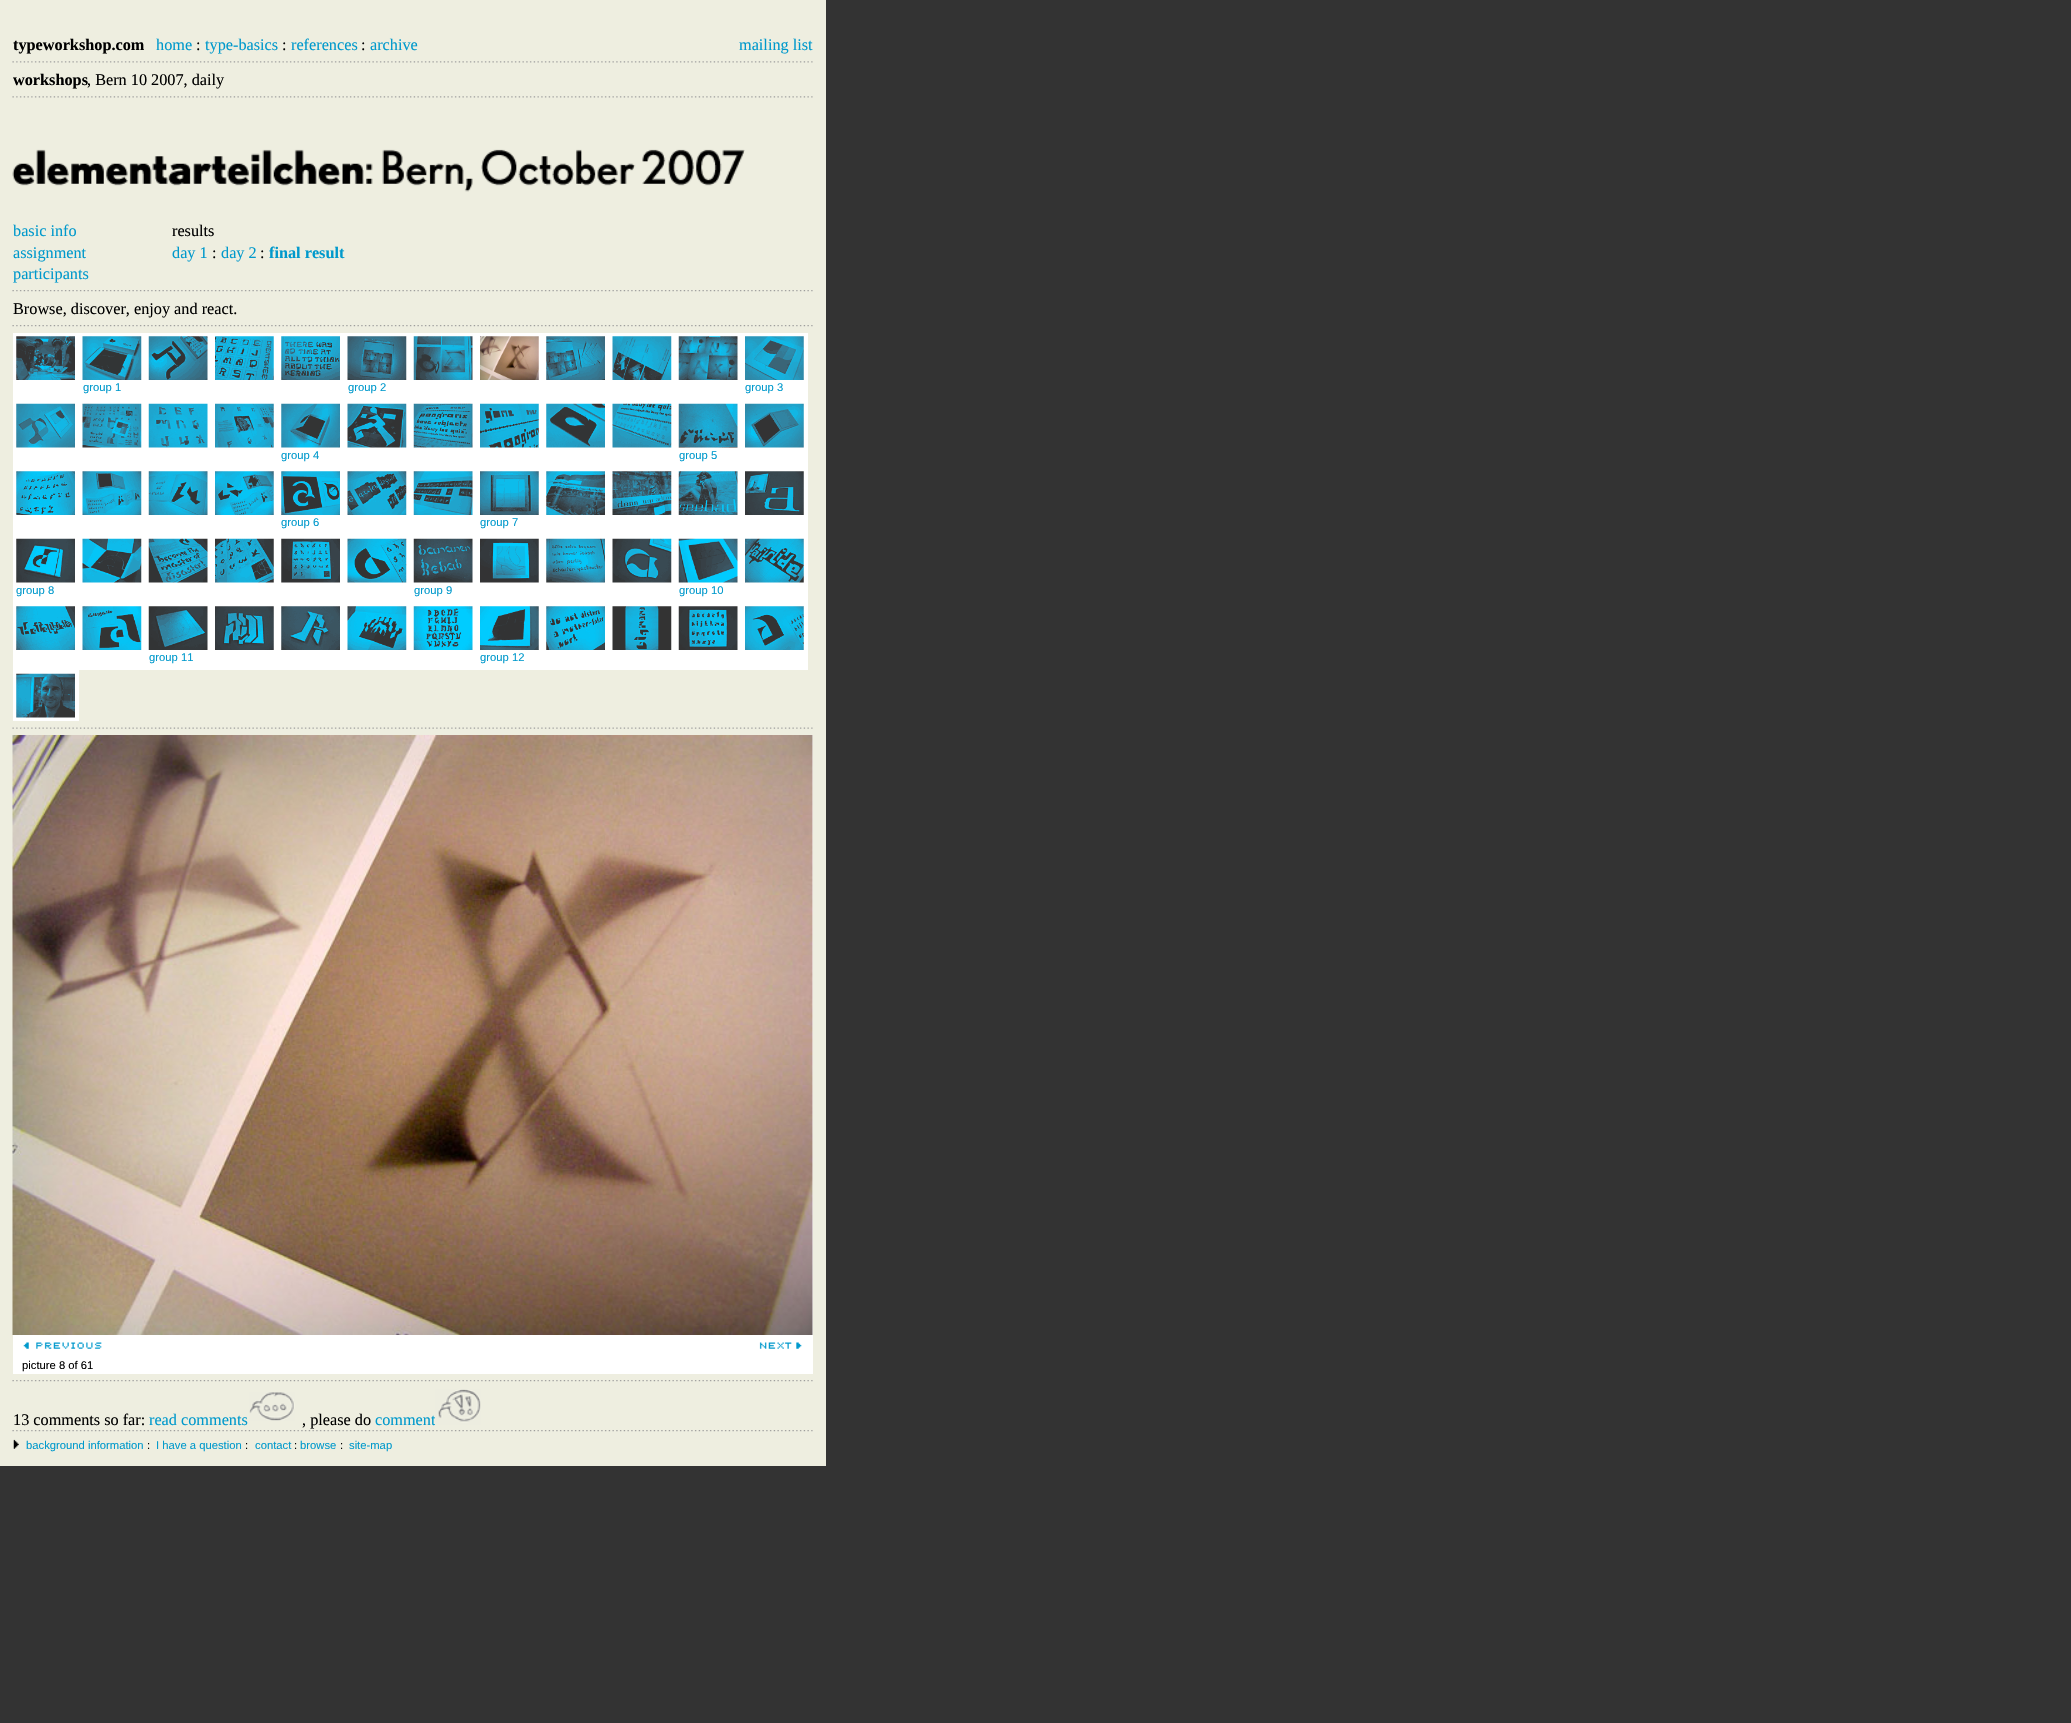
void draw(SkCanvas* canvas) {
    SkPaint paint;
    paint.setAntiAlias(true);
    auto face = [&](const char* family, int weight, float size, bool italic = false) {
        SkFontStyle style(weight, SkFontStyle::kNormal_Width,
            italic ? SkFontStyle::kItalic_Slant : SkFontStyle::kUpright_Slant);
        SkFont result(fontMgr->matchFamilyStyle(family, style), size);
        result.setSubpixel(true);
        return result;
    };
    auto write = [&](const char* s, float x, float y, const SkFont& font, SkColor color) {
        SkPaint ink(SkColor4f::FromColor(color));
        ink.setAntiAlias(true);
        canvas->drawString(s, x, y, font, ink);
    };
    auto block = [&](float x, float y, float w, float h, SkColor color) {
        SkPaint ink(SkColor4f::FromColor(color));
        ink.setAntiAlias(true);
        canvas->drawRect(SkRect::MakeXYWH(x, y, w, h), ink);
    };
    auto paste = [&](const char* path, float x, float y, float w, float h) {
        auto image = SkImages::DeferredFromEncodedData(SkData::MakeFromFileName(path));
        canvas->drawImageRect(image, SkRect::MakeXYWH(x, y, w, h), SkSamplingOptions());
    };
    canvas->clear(SkColorSetRGB(51, 51, 51));
    block(0, 0, 826, 1466, SkColorSetRGB(238, 238, 224));
    auto kFont1 = face("Liberation Serif", 700, 16.25f);
    write("typeworkshop.com", 13, 50, kFont1, SK_ColorBLACK);
    auto kFont2 = face("Liberation Serif", 400, 16.25f);
    write("home", 156, 50, kFont2, SkColorSetRGB(0, 153, 204));
    write(":", 196, 50, kFont2, SK_ColorBLACK);
    write("type-basics", 205, 50, kFont2, SkColorSetRGB(0, 153, 204));
    write(":", 282, 50, kFont2, SK_ColorBLACK);
    write("references", 291, 50, kFont2, SkColorSetRGB(0, 153, 204));
    write(":", 361, 50, kFont2, SK_ColorBLACK);
    write("archive", 370, 50, kFont2, SkColorSetRGB(0, 153, 204));
    write("mailing list", 739, 50, kFont2, SkColorSetRGB(0, 153, 204));
    paste("pic1.png", 12, 61, 801, 2);
    write("workshops", 13, 85, kFont1, SK_ColorBLACK);
    write(", Bern 10 2007, daily", 87, 85, kFont2, SK_ColorBLACK);
    paste("pic1.png", 12, 96, 801, 2);
    paste("pic2.png", 12, 149, 733, 43);
    write("basic info", 13, 236, kFont2, SkColorSetRGB(0, 153, 204));
    write("assignment", 13, 258, kFont2, SkColorSetRGB(0, 153, 204));
    write("participants", 13, 279, kFont2, SkColorSetRGB(0, 153, 204));
    write("results", 172, 236, kFont2, SK_ColorBLACK);
    write("day 1", 172, 258, kFont2, SkColorSetRGB(0, 153, 204));
    write(":", 212, 258, kFont2, SK_ColorBLACK);
    write("day 2", 221, 258, kFont2, SkColorSetRGB(0, 153, 204));
    write(":", 260, 258, kFont2, SK_ColorBLACK);
    write("final result", 269, 258, kFont1, SkColorSetRGB(0, 153, 204));
    paste("pic3.png", 12, 290, 801, 2);
    write("Browse, discover, enjoy and react.", 13, 314, kFont2, SK_ColorBLACK);
    paste("pic3.png", 12, 325, 801, 2);
    block(13, 333, 795, 67, SK_ColorWHITE);
    paste("pic4.png", 16, 336, 59, 44);
    paste("pic5.png", 148, 336, 60, 44);
    paste("pic6.png", 215, 336, 59, 44);
    paste("pic7.png", 281, 336, 59, 44);
    paste("pic8.png", 413, 336, 60, 44);
    paste("pic9.png", 480, 336, 59, 44);
    paste("pic10.png", 546, 336, 59, 44);
    paste("pic11.png", 612, 336, 60, 44);
    paste("pic12.png", 678, 336, 60, 44);
    paste("pic13.png", 82, 336, 60, 44);
    auto kFont3 = face("Liberation Sans", 400, 11.25f);
    write("group 1", 83, 391, kFont3, SkColorSetRGB(0, 153, 204));
    paste("pic14.png", 347, 336, 60, 44);
    write("group 2", 348, 391, kFont3, SkColorSetRGB(0, 153, 204));
    paste("pic15.png", 745, 336, 59, 44);
    write("group 3", 745, 391, kFont3, SkColorSetRGB(0, 153, 204));
    block(13, 400, 795, 68, SK_ColorWHITE);
    paste("pic16.png", 16, 403, 59, 45);
    paste("pic17.png", 82, 403, 60, 45);
    paste("pic18.png", 148, 403, 60, 45);
    paste("pic19.png", 215, 403, 59, 45);
    paste("pic20.png", 347, 403, 60, 45);
    paste("pic21.png", 413, 403, 60, 45);
    paste("pic22.png", 480, 403, 59, 45);
    paste("pic23.png", 546, 403, 59, 45);
    paste("pic24.png", 612, 403, 60, 45);
    paste("pic25.png", 745, 403, 59, 45);
    paste("pic26.png", 281, 403, 59, 45);
    write("group 4", 281, 459, kFont3, SkColorSetRGB(0, 153, 204));
    paste("pic27.png", 678, 403, 60, 45);
    write("group 5", 679, 459, kFont3, SkColorSetRGB(0, 153, 204));
    block(13, 468, 795, 67, SK_ColorWHITE);
    paste("pic28.png", 16, 471, 59, 44);
    paste("pic29.png", 82, 471, 60, 44);
    paste("pic30.png", 148, 471, 60, 44);
    paste("pic31.png", 215, 471, 59, 44);
    paste("pic32.png", 347, 471, 60, 44);
    paste("pic33.png", 413, 471, 60, 44);
    paste("pic34.png", 546, 471, 59, 44);
    paste("pic35.png", 612, 471, 60, 44);
    paste("pic36.png", 678, 471, 60, 44);
    paste("pic37.png", 745, 471, 59, 44);
    paste("pic38.png", 281, 471, 59, 44);
    write("group 6", 281, 526, kFont3, SkColorSetRGB(0, 153, 204));
    paste("pic39.png", 480, 471, 59, 44);
    write("group 7", 480, 526, kFont3, SkColorSetRGB(0, 153, 204));
    block(13, 535, 795, 68, SK_ColorWHITE);
    paste("pic40.png", 82, 538, 60, 45);
    paste("pic41.png", 148, 538, 60, 45);
    paste("pic42.png", 215, 538, 59, 45);
    paste("pic43.png", 281, 538, 59, 45);
    paste("pic44.png", 347, 538, 60, 45);
    paste("pic45.png", 480, 538, 59, 45);
    paste("pic46.png", 546, 538, 59, 45);
    paste("pic47.png", 612, 538, 60, 45);
    paste("pic48.png", 745, 538, 59, 45);
    paste("pic49.png", 16, 538, 59, 45);
    write("group 8", 16, 594, kFont3, SkColorSetRGB(0, 153, 204));
    paste("pic50.png", 413, 538, 60, 45);
    write("group 9", 414, 594, kFont3, SkColorSetRGB(0, 153, 204));
    paste("pic51.png", 678, 538, 60, 45);
    write("group 10", 679, 594, kFont3, SkColorSetRGB(0, 153, 204));
    block(13, 603, 795, 67, SK_ColorWHITE);
    paste("pic52.png", 16, 606, 59, 44);
    paste("pic53.png", 82, 606, 60, 44);
    paste("pic54.png", 215, 606, 59, 44);
    paste("pic55.png", 281, 606, 59, 44);
    paste("pic56.png", 347, 606, 60, 44);
    paste("pic57.png", 413, 606, 60, 44);
    paste("pic58.png", 546, 606, 59, 44);
    paste("pic59.png", 612, 606, 60, 44);
    paste("pic60.png", 678, 606, 60, 44);
    paste("pic61.png", 745, 606, 59, 44);
    paste("pic62.png", 148, 606, 60, 44);
    write("group 11", 149, 661, kFont3, SkColorSetRGB(0, 153, 204));
    paste("pic63.png", 480, 606, 59, 44);
    write("group 12", 480, 661, kFont3, SkColorSetRGB(0, 153, 204));
    block(13, 670, 66, 51, SK_ColorWHITE);
    paste("pic64.png", 16, 673, 59, 45);
    paste("pic65.png", 12, 727, 801, 2);
    block(13, 735, 800, 639, SK_ColorWHITE);
    paste("pic66.png", 12, 735, 801, 600);
    paste("pic67.png", 759, 1342, 43, 7);
    paste("pic68.png", 23, 1342, 79, 7);
    write("picture 8 of 61", 22, 1369, kFont3, SK_ColorBLACK);
    paste("pic3.png", 12, 1380, 801, 2);
    write("13 comments so far:", 13, 1425, kFont2, SK_ColorBLACK);
    write("read comments", 149, 1425, kFont2, SkColorSetRGB(0, 153, 204));
    paste("pic69.png", 249, 1392, 46, 29);
    write(", please do", 302, 1425, kFont2, SK_ColorBLACK);
    write("comment", 375, 1425, kFont2, SkColorSetRGB(0, 153, 204));
    paste("pic70.png", 435, 1389, 46, 36);
    paste("pic3.png", 12, 1430, 801, 2);
    paste("pic71.png", 13, 1439, 6, 10);
    write("background information", 26, 1449, kFont3, SkColorSetRGB(0, 153, 204));
    write(":", 147, 1449, kFont3, SK_ColorBLACK);
    write("I have a question", 156, 1449, kFont3, SkColorSetRGB(0, 153, 204));
    write(":", 245, 1449, kFont3, SK_ColorBLACK);
    write("contact", 255, 1449, kFont3, SkColorSetRGB(0, 153, 204));
    write(":", 294, 1449, kFont3, SK_ColorBLACK);
    write("browse", 300, 1449, kFont3, SkColorSetRGB(0, 153, 204));
    write(":", 340, 1449, kFont3, SK_ColorBLACK);
    write("site-map", 349, 1449, kFont3, SkColorSetRGB(0, 153, 204));
}
